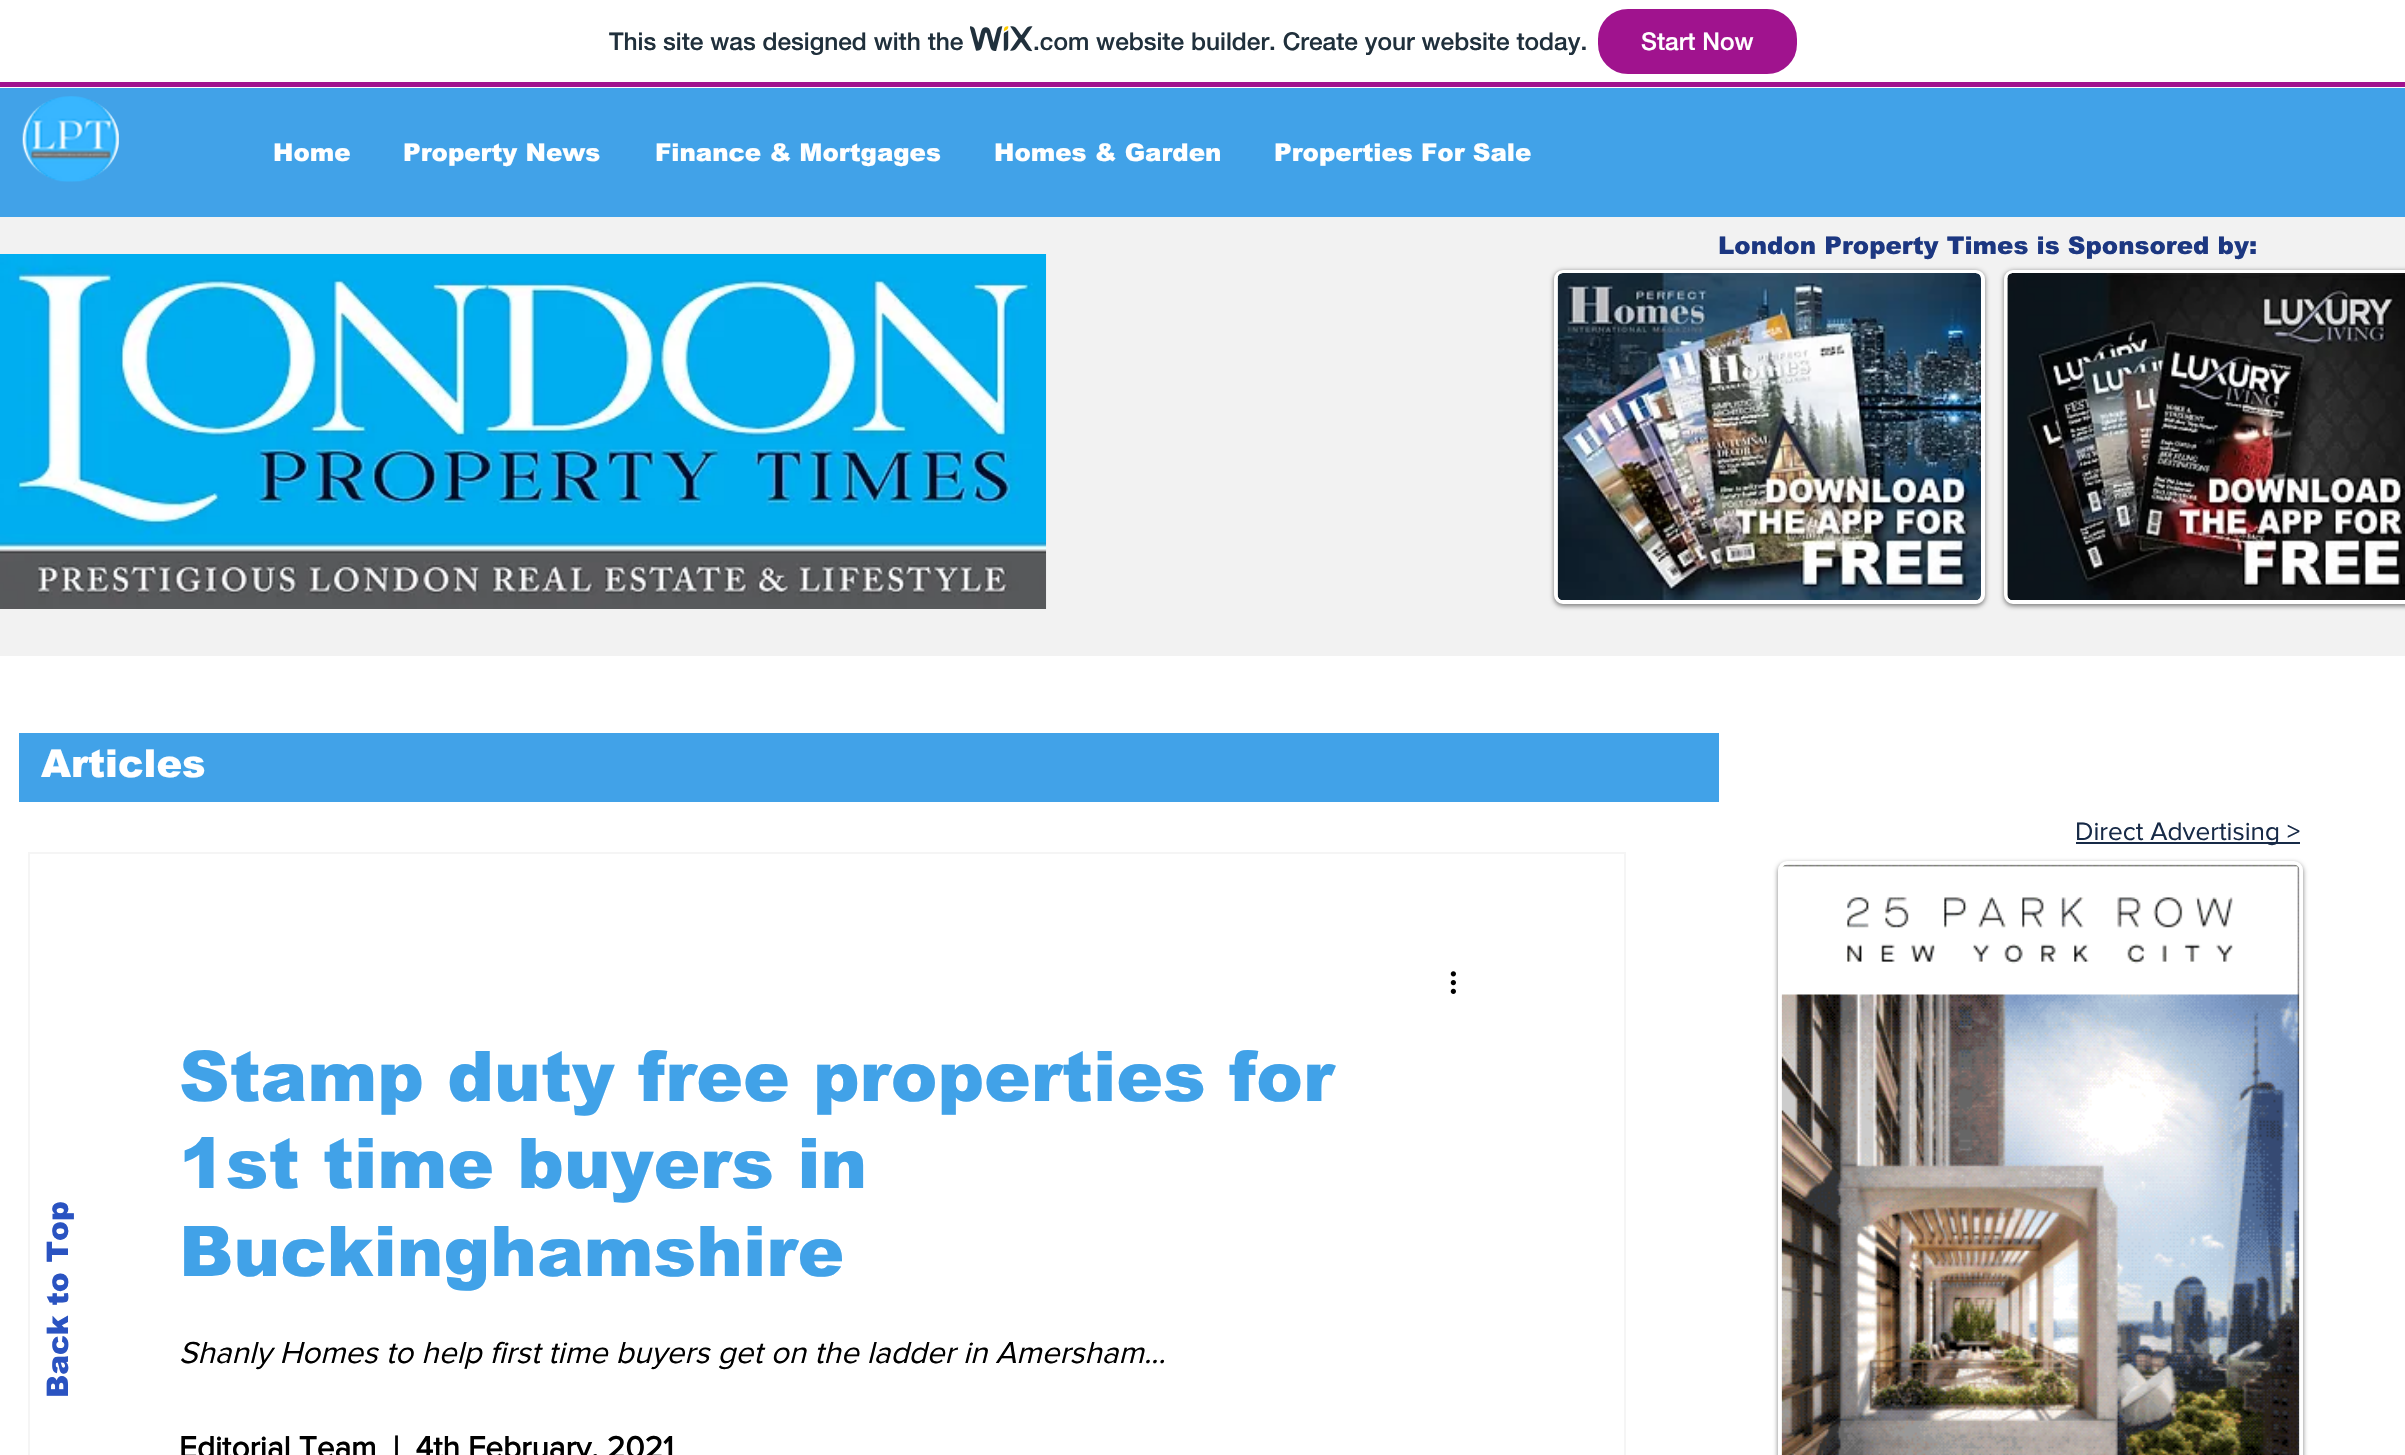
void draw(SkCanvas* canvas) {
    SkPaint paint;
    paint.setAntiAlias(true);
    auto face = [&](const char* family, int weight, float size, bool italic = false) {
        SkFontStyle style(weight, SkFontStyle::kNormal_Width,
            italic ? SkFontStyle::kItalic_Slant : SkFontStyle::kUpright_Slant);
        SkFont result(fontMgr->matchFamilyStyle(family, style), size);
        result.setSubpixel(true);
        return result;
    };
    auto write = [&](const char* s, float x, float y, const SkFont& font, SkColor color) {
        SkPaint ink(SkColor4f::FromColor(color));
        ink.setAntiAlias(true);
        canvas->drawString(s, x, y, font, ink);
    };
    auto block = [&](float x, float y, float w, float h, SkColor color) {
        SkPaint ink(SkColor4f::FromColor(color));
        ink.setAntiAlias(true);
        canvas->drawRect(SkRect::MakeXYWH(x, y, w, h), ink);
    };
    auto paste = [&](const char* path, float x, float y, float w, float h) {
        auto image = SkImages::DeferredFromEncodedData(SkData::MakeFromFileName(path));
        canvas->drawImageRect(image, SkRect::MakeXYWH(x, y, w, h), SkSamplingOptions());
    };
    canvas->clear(SK_ColorWHITE);
    block(0, 82, 2405, 5, SkColorSetRGB(160, 19, 142));
    auto kFont1 = face("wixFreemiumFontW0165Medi", 500, 24.5f);
    write("This site was designed with the", 609, 50, kFont1, SkColorSetRGB(32, 48, 60));
    paste("pic1.png", 970, 26, 63, 26);
    write(".com website builder. Create your website today.", 1033, 50, kFont1, SkColorSetRGB(32, 48, 60));
    paint.setColor(SkColorSetRGB(160, 19, 142));
    canvas->drawRoundRect(SkRect::MakeXYWH(1599, 10, 197, 63), 29, 29, paint);
    paint.setStyle(SkPaint::kStroke_Style);
    paint.setStrokeWidth(2);
    canvas->drawRoundRect(SkRect::MakeXYWH(1599, 10, 197, 63), 29, 29, paint);
    write("Start Now", 1641, 50, kFont1, SK_ColorWHITE);
    block(0, 88, 2405, 129, SkColorSetRGB(65, 162, 232));
    paste("pic2.png", 22, 96, 97, 86);
    auto kFont2 = face("arial", 900, 24.5f);
    write("Home", 273, 161, kFont2, SK_ColorWHITE);
    write("Property News", 403, 161, kFont2, SK_ColorWHITE);
    write("Finance & Mortgages", 655, 161, kFont2, SK_ColorWHITE);
    write("Homes & Garden", 994, 161, kFont2, SK_ColorWHITE);
    write("Properties For Sale", 1274, 161, kFont2, SK_ColorWHITE);
    block(0, 217, 2405, 439, SkColorSetRGB(242, 242, 242));
    write("London Property Times is Sponsored by:", 1718, 254, kFont2, SkColorSetRGB(28, 55, 129));
    paint.setStyle(SkPaint::kFill_Style);
    paint.setColor(SkColorSetARGB(128, 0, 0, 0));
    paint.setMaskFilter(SkMaskFilter::MakeBlur(kNormal_SkBlurStyle, 2.5f));
    canvas->drawRoundRect(SkRect::MakeXYWH(1554, 271, 431, 335), 9, 9, paint);
    paint.setMaskFilter(nullptr);
    paint.setColor(SK_ColorWHITE);
    canvas->drawRoundRect(SkRect::MakeXYWH(1556, 272, 427, 330), 7, 7, paint);
    paint.setStyle(SkPaint::kStroke_Style);
    paint.setStrokeWidth(4);
    canvas->drawRoundRect(SkRect::MakeXYWH(1556, 272, 427, 330), 7, 7, paint);
    paste("pic3.png", 1557, 273, 424, 327);
    paint.setStyle(SkPaint::kFill_Style);
    paint.setColor(SkColorSetARGB(128, 0, 0, 0));
    paint.setMaskFilter(SkMaskFilter::MakeBlur(kNormal_SkBlurStyle, 2.5f));
    canvas->drawRoundRect(SkRect::MakeXYWH(2004, 271, 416, 335), 9, 9, paint);
    paint.setMaskFilter(nullptr);
    paint.setStyle(SkPaint::kStroke_Style);
    paint.setColor(SK_ColorWHITE);
    canvas->drawRoundRect(SkRect::MakeXYWH(2006, 272, 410, 330), 7, 7, paint);
    paste("pic4.png", 2007, 273, 398, 327);
    paste("pic5.png", 0, 254, 1047, 355);
    block(19, 733, 1700, 69, SkColorSetRGB(65, 162, 232));
    auto kFont3 = face("arial", 900, 38.5f);
    write("Articles", 41, 777, kFont3, SK_ColorWHITE);
    block(2076, 842, 224, 2, SkColorSetRGB(23, 42, 71));
    auto kFont4 = face("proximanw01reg", 400, 26.25f);
    write("Direct Advertising >", 2075, 840, kFont4, SkColorSetRGB(23, 42, 71));
    paint.setStrokeWidth(2);
    paint.setColor(SkColorSetRGB(245, 245, 245));
    canvas->drawRect(SkRect::MakeXYWH(29, 853, 1596, 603), paint);
    paste("pic6.png", 1450, 971, 6, 23);
    auto kFont5 = face("arial", 900, 70);
    write("Stamp duty free properties for", 179, 1101, kFont5, SkColorSetRGB(65, 162, 232));
    write("1st time buyers in", 179, 1188, kFont5, SkColorSetRGB(65, 162, 232));
    write("Buckinghamshire", 179, 1276, kFont5, SkColorSetRGB(65, 162, 232));
    auto kFont6 = face("proximanw01reg", 400, 31.5f, true);
    write("Shanly Homes to help first time buyers get on the ladder in Amersham...", 179, 1363, kFont6, SK_ColorBLACK);
    auto kFont7 = face("proximanw01reg", 700, 31.5f);
    write("Editorial Team  |  4th February, 2021", 179, 1458, kFont7, SK_ColorBLACK);
    paint.setStyle(SkPaint::kFill_Style);
    paint.setColor(SkColorSetARGB(128, 0, 0, 0));
    paint.setMaskFilter(SkMaskFilter::MakeBlur(kNormal_SkBlurStyle, 2.5f));
    canvas->drawRoundRect(SkRect::MakeXYWH(1778, 863, 525, 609), 9, 9, paint);
    paint.setMaskFilter(nullptr);
    paint.setStyle(SkPaint::kStroke_Style);
    paint.setStrokeWidth(4);
    paint.setColor(SK_ColorWHITE);
    canvas->drawRoundRect(SkRect::MakeXYWH(1780, 863, 521, 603), 7, 7, paint);
    paste("pic7.png", 1781, 864, 519, 591);
    auto kFont8 = face("arial", 900, 29.75f);
    canvas->save();
    canvas->rotate(-90, 68, 1398);
    write("Back to Top", 68, 1398, kFont8, SkColorSetRGB(42, 83, 193));
    canvas->restore();
}
